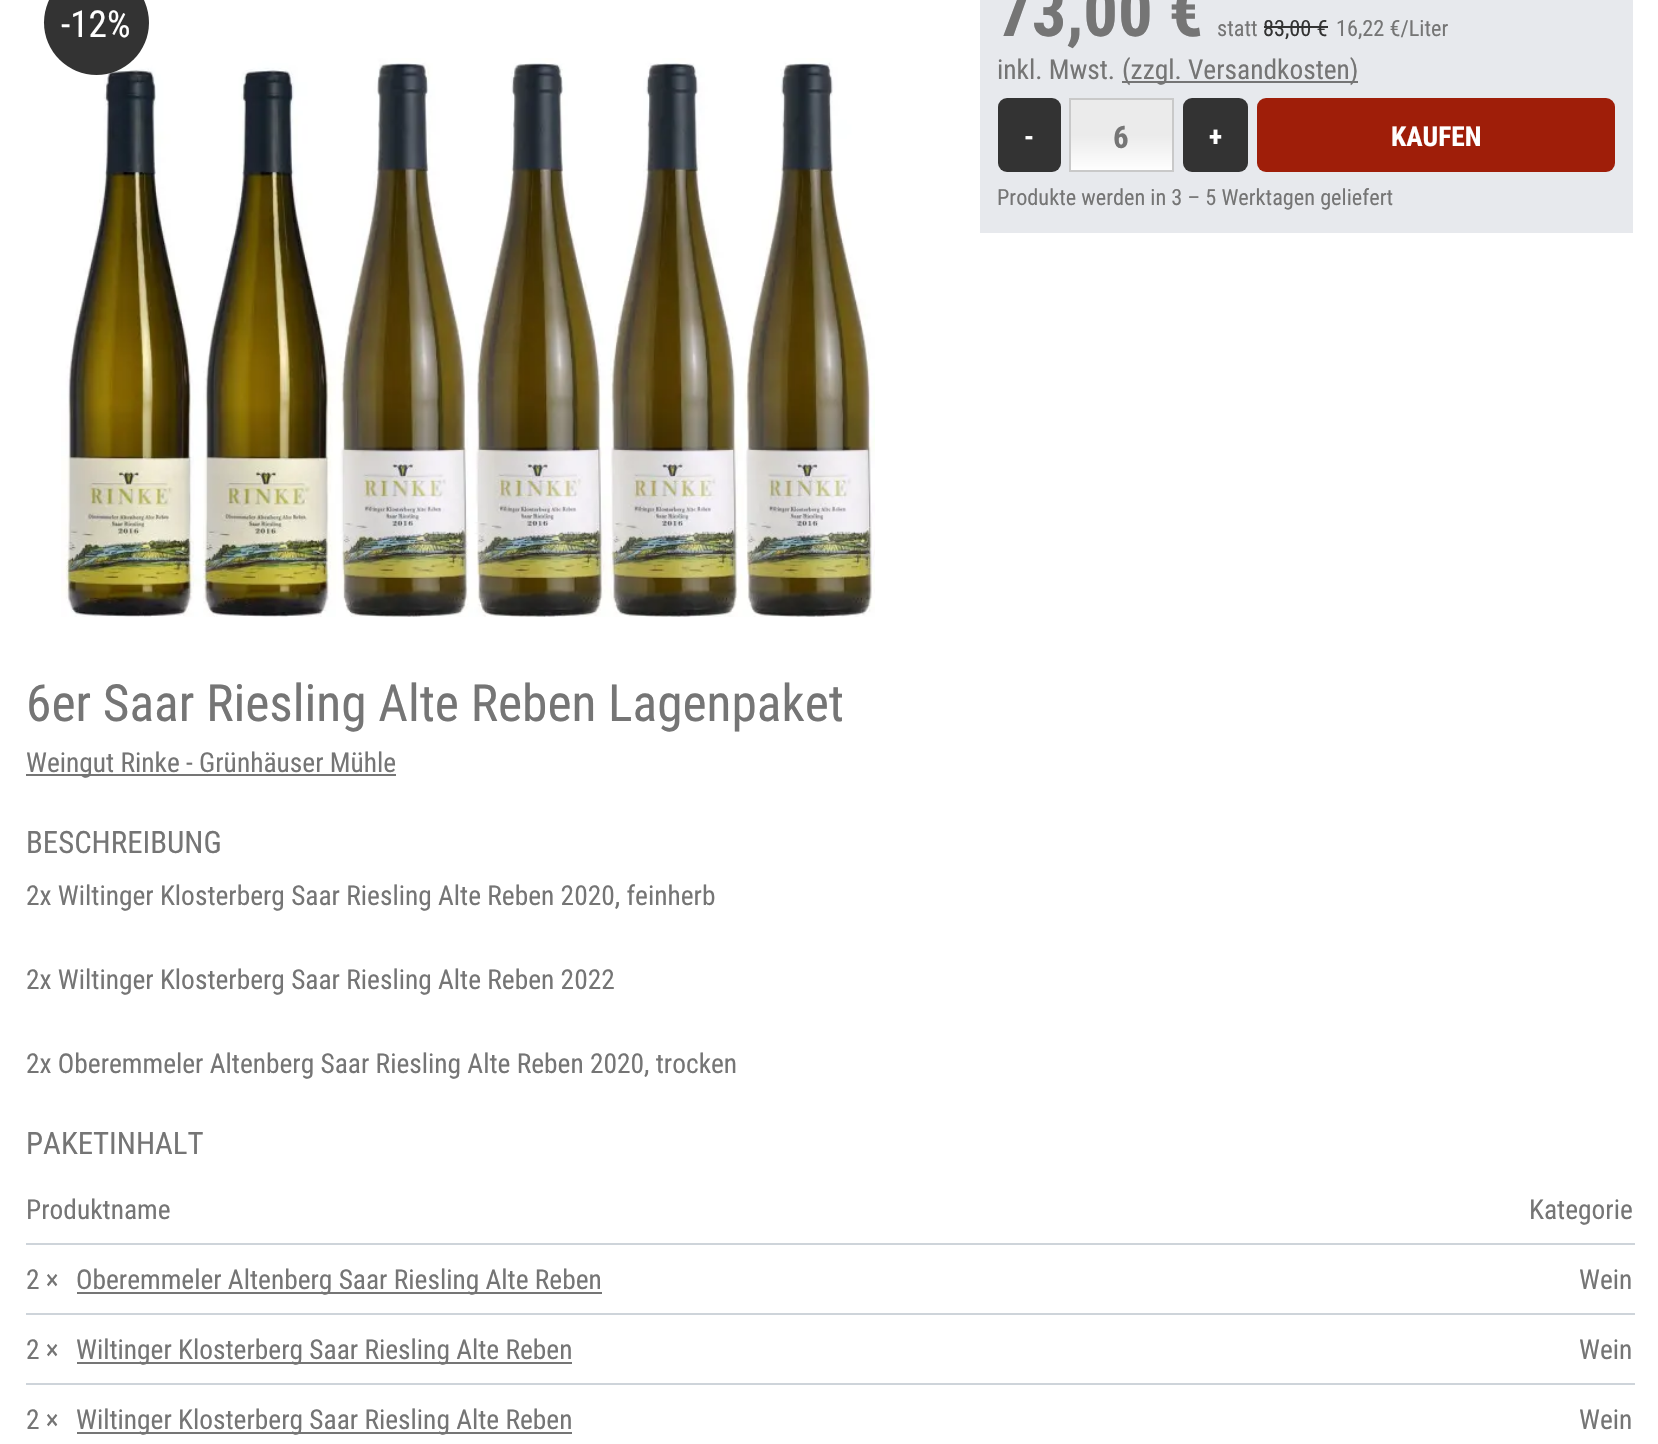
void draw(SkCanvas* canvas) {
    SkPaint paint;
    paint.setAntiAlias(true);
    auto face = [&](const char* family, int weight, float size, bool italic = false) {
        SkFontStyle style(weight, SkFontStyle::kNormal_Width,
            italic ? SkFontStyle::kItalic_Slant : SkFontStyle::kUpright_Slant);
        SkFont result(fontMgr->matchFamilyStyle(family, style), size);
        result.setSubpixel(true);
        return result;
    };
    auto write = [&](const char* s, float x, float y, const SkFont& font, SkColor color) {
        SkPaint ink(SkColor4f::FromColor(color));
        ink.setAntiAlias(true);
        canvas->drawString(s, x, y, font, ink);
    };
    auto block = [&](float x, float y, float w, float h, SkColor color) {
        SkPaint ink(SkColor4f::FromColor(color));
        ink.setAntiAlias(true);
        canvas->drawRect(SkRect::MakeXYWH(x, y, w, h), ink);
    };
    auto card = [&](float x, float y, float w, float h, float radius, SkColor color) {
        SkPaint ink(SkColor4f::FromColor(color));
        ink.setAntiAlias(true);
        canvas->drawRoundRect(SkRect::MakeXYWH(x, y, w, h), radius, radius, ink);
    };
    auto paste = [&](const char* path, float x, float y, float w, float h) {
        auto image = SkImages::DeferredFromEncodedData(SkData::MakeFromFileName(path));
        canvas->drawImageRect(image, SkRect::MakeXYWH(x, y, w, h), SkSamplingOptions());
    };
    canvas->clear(SK_ColorWHITE);
    paste("pic1.png", 61, 58, 814, 559);
    paint.setColor(SkColorSetRGB(51, 51, 51));
    canvas->drawCircle(96.5f, 22.5f, 52.5f, paint);
    auto kFont1 = face("Roboto Condensed", 400, 38);
    write("-12%", 61, 37, kFont1, SK_ColorWHITE);
    block(980, 0, 653, 233, SkColorSetRGB(231, 233, 237));
    auto kFont2 = face("Roboto Condensed", 700, 70);
    write("73,00 €", 997, 36, kFont2, SkColorSetRGB(117, 117, 117));
    auto kFont3 = face("Roboto Condensed", 400, 22.75f);
    write("statt", 1217, 36, kFont3, SkColorSetRGB(117, 117, 117));
    write("83,00 €", 1263, 36, kFont3, SkColorSetRGB(51, 51, 51));
    block(1264, 26, 64, 2, SkColorSetRGB(51, 51, 51));
    write("16,22 €/Liter", 1336, 36, kFont3, SkColorSetRGB(117, 117, 117));
    auto kFont4 = face("Roboto Condensed", 400, 28);
    write("inkl. Mwst.", 997, 79, kFont4, SkColorSetRGB(117, 117, 117));
    block(1122, 81, 236, 2, SkColorSetRGB(117, 117, 117));
    write("(zzgl. Versandkosten)", 1122, 79, kFont4, SkColorSetRGB(117, 117, 117));
    card(998, 98, 63, 74, 9, SkColorSetRGB(51, 51, 51));
    auto kFont5 = face("Roboto Condensed", 700, 28);
    write("-", 1024, 146, kFont5, SK_ColorWHITE);
    {
        const SkColor colors[] = {SkColorSetRGB(235, 235, 235), SK_ColorWHITE};
        const float stops[] = {0.5f, 1};
        const SkPoint ends[] = {{1122, 98}, {1122, 172}};
        paint.setShader(SkGradientShader::MakeLinear(ends, colors, stops, 2, SkTileMode::kClamp));
        paint.setAlpha(255);
    }
    canvas->drawRect(SkRect::MakeXYWH(1071, 100, 101, 70), paint);
    paint.setStyle(SkPaint::kStroke_Style);
    paint.setStrokeWidth(2);
    paint.setShader(nullptr);
    paint.setColor(SkColorSetRGB(201, 201, 201));
    canvas->drawRect(SkRect::MakeXYWH(1070, 99, 103, 72), paint);
    auto kFont6 = face("Roboto Condensed", 700, 31.5f);
    write("6", 1113, 148, kFont6, SkColorSetRGB(117, 117, 117));
    card(1183, 98, 65, 74, 9, SkColorSetRGB(51, 51, 51));
    write("+", 1209, 146, kFont5, SK_ColorWHITE);
    card(1257, 98, 358, 74, 9, SkColorSetRGB(159, 30, 9));
    write("KAUFEN", 1391, 146, kFont5, SK_ColorWHITE);
    write("Produkte werden in 3 – 5 Werktagen geliefert", 997, 205, kFont3, SkColorSetRGB(117, 117, 117));
    auto kFont7 = face("Roboto Condensed", 400, 52.5f);
    write("6er Saar Riesling Alte Reben Lagenpaket", 26, 721, kFont7, SkColorSetRGB(117, 117, 117));
    block(26, 774, 370, 2, SkColorSetRGB(117, 117, 117));
    write("Weingut Rinke - Grünhäuser Mühle", 26, 772, kFont4, SkColorSetRGB(117, 117, 117));
    auto kFont8 = face("Roboto Condensed", 400, 31.5f);
    write("BESCHREIBUNG", 26, 853, kFont8, SkColorSetRGB(117, 117, 117));
    write("2x Wiltinger Klosterberg Saar Riesling Alte Reben 2020, feinherb", 26, 905, kFont4, SkColorSetRGB(117, 117, 117));
    write("2x Wiltinger Klosterberg Saar Riesling Alte Reben 2022", 26, 989, kFont4, SkColorSetRGB(117, 117, 117));
    write("2x Oberemmeler Altenberg Saar Riesling Alte Reben 2020, trocken", 26, 1073, kFont4, SkColorSetRGB(117, 117, 117));
    write("PAKETINHALT", 26, 1154, kFont8, SkColorSetRGB(117, 117, 117));
    write("Produktname", 26, 1219, kFont4, SkColorSetRGB(117, 117, 117));
    block(26, 1243, 1609, 2, SkColorSetRGB(206, 212, 218));
    write("Kategorie", 1529, 1219, kFont4, SkColorSetRGB(117, 117, 117));
    write("2 ×", 26, 1289, kFont4, SkColorSetRGB(117, 117, 117));
    block(77, 1292, 525, 2, SkColorSetRGB(117, 117, 117));
    write("Oberemmeler Altenberg Saar Riesling Alte Reben", 76, 1289, kFont4, SkColorSetRGB(117, 117, 117));
    block(26, 1313, 1609, 2, SkColorSetRGB(206, 212, 218));
    write("Wein", 1579, 1289, kFont4, SkColorSetRGB(117, 117, 117));
    write("2 ×", 26, 1359, kFont4, SkColorSetRGB(117, 117, 117));
    block(77, 1362, 495, 2, SkColorSetRGB(117, 117, 117));
    write("Wiltinger Klosterberg Saar Riesling Alte Reben", 76, 1359, kFont4, SkColorSetRGB(117, 117, 117));
    block(26, 1383, 1609, 2, SkColorSetRGB(206, 212, 218));
    write("Wein", 1579, 1359, kFont4, SkColorSetRGB(117, 117, 117));
    write("2 ×", 26, 1429, kFont4, SkColorSetRGB(117, 117, 117));
    block(77, 1432, 495, 2, SkColorSetRGB(117, 117, 117));
    write("Wiltinger Klosterberg Saar Riesling Alte Reben", 76, 1429, kFont4, SkColorSetRGB(117, 117, 117));
    write("Wein", 1579, 1429, kFont4, SkColorSetRGB(117, 117, 117));
}
